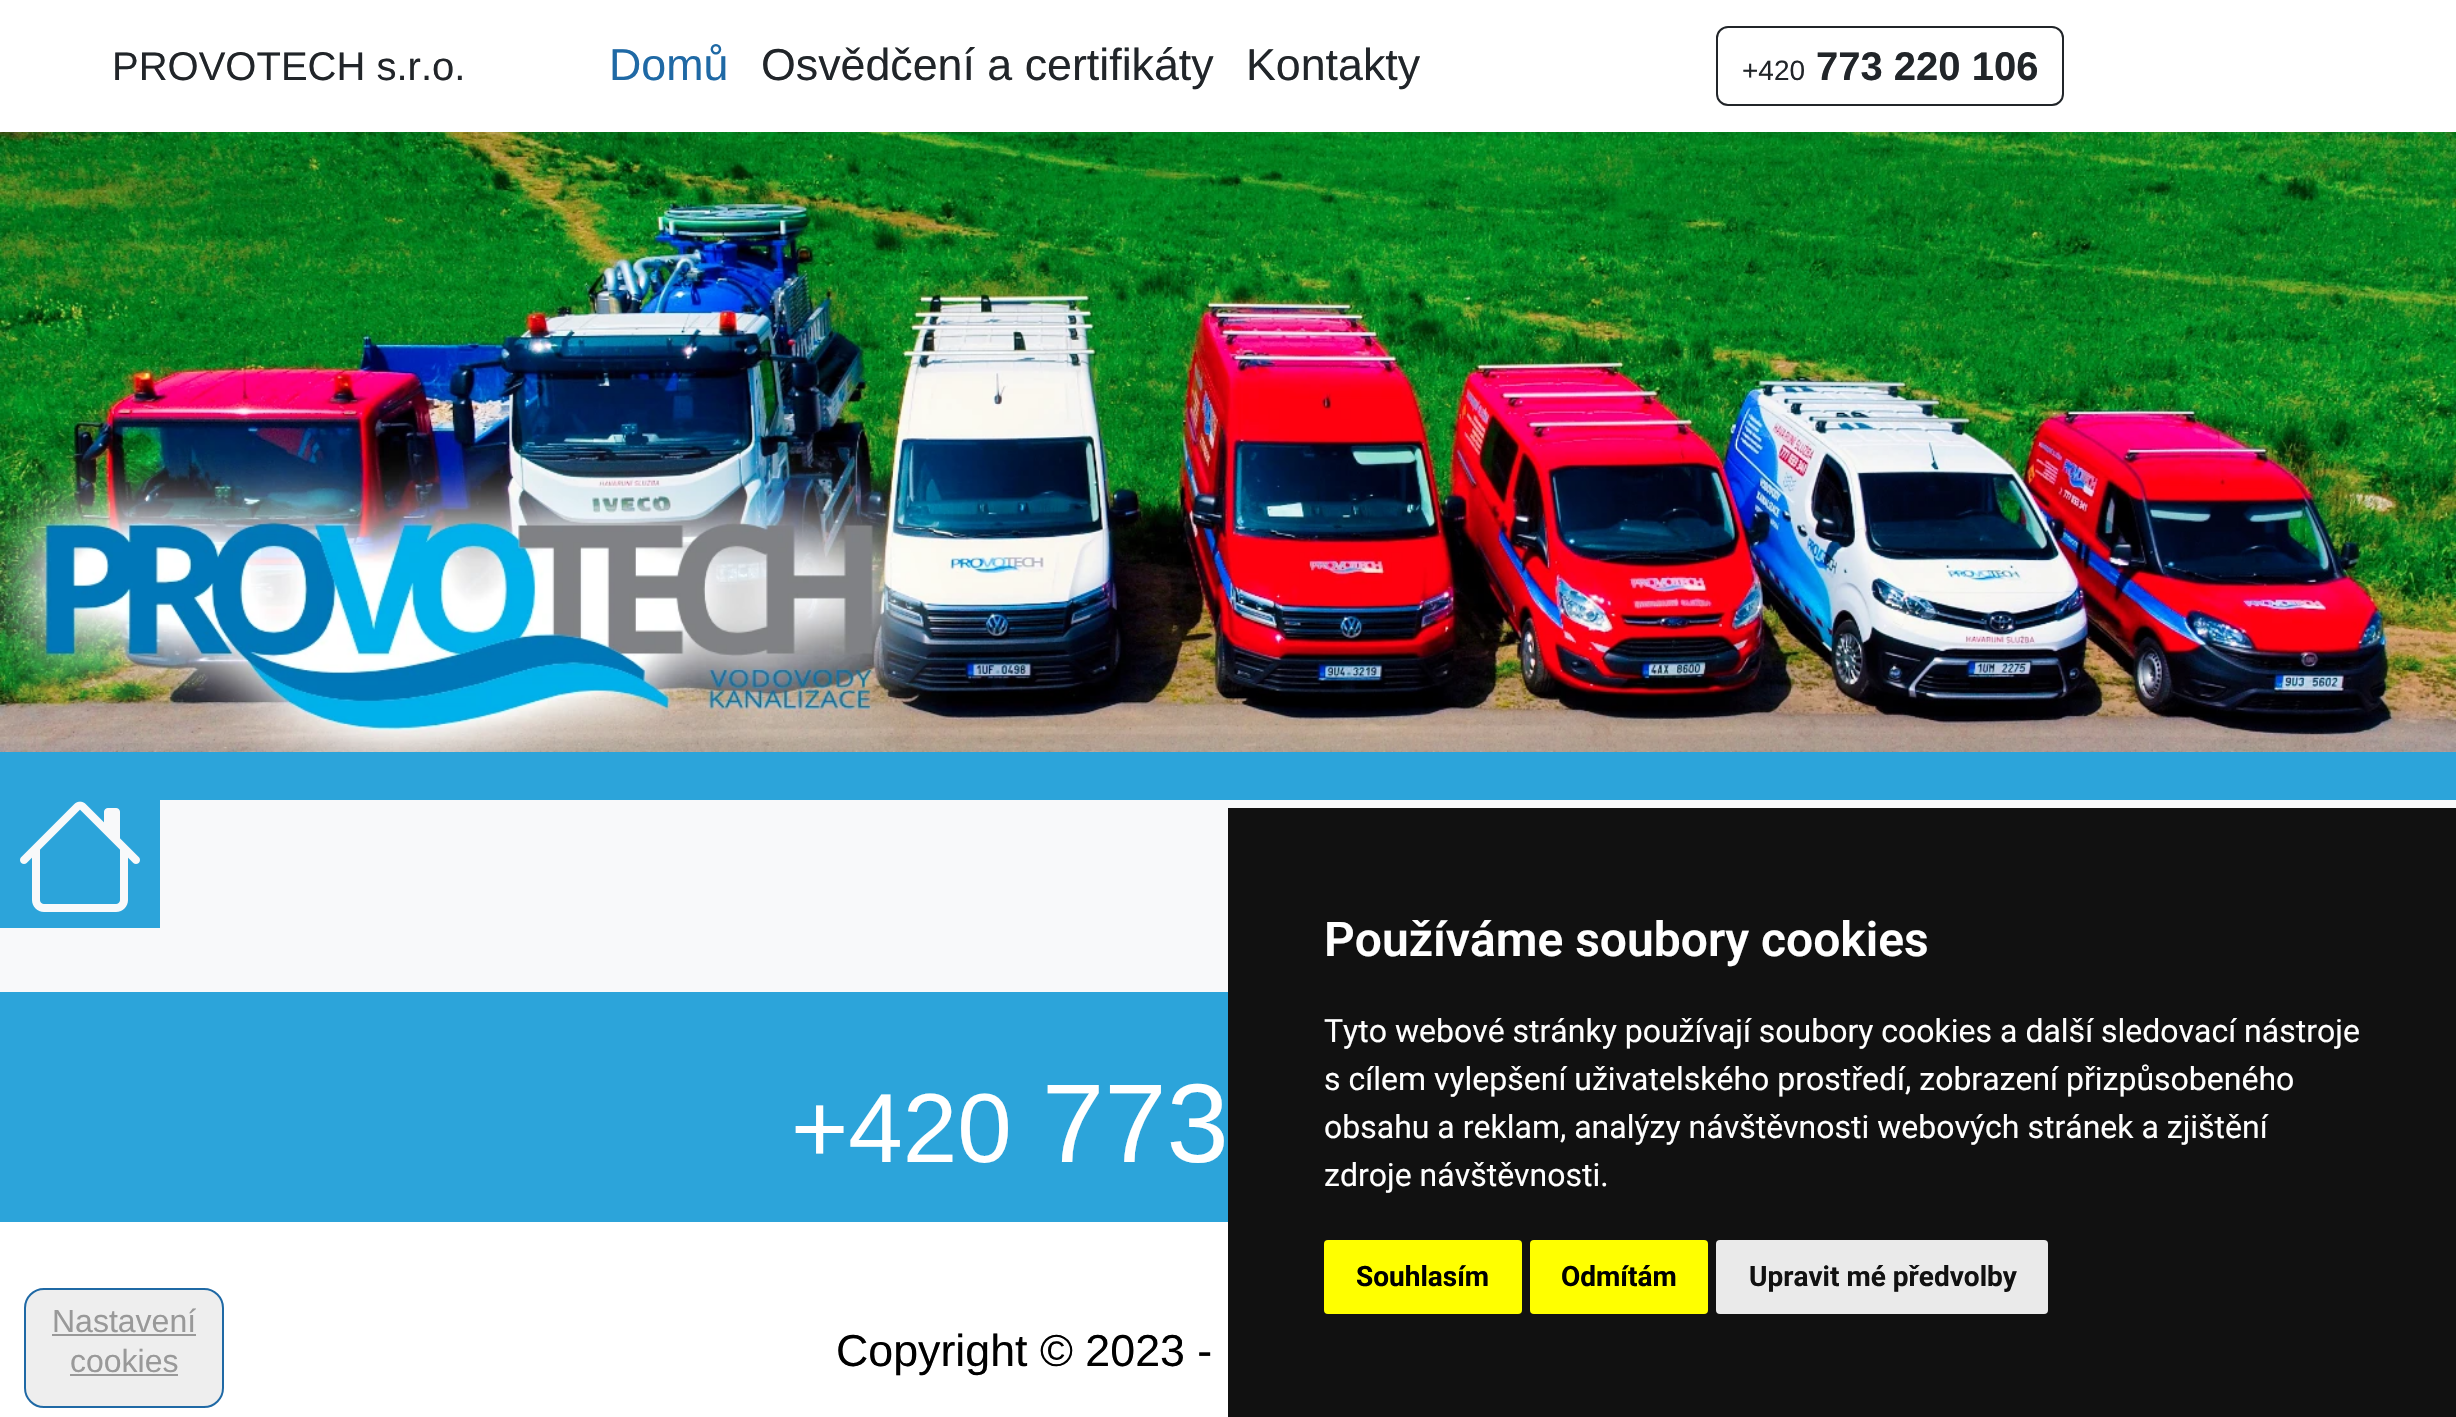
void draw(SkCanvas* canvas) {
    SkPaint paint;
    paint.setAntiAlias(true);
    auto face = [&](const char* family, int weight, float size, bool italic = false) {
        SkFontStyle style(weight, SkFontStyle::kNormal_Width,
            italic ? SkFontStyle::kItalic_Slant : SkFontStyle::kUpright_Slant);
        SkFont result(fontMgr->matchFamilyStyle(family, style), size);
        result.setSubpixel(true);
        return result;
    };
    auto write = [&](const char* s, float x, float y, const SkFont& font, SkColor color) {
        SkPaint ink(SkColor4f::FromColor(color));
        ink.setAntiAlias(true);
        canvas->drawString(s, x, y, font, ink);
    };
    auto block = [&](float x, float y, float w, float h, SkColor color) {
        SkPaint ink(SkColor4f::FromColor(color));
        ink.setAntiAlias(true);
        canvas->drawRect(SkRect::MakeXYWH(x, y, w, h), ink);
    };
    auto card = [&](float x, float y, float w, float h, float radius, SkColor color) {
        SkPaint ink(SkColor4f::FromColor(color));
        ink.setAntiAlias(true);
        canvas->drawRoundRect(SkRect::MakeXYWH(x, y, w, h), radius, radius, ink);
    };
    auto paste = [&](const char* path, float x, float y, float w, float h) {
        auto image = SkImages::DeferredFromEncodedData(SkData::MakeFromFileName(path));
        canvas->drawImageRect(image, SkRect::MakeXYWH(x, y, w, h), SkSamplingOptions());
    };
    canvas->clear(SK_ColorWHITE);
    auto kFont1 = face("Liberation Sans", 400, 40);
    write("PROVOTECH s.r.o.", 112, 80, kFont1, SkColorSetRGB(33, 37, 41));
    auto kFont2 = face("Liberation Sans", 400, 44.75f);
    write("Domů", 609, 80, kFont2, SkColorSetRGB(31, 105, 165));
    write("Osvědčení a certifikáty", 761, 80, kFont2, SkColorSetRGB(33, 37, 41));
    write("Kontakty", 1246, 80, kFont2, SkColorSetRGB(33, 37, 41));
    paint.setStyle(SkPaint::kStroke_Style);
    paint.setStrokeWidth(2);
    paint.setColor(SkColorSetRGB(33, 37, 41));
    canvas->drawRoundRect(SkRect::MakeXYWH(1717, 27, 346, 78), 11, 11, paint);
    auto kFont3 = face("Liberation Sans", 400, 28);
    write("+420", 1742, 80, kFont3, SkColorSetRGB(33, 37, 41));
    auto kFont4 = face("Liberation Sans", 700, 40);
    write("773 220 106", 1816, 80, kFont4, SkColorSetRGB(33, 37, 41));
    paste("pic1.png", 0, 132, 2456, 620);
    block(0, 752, 2456, 48, SkColorSetRGB(44, 164, 218));
    block(0, 800, 2456, 192, SkColorSetRGB(248, 249, 250));
    block(0, 800, 160, 128, SkColorSetRGB(44, 164, 218));
    paste("pic2.png", 20, 801, 120, 111);
    block(0, 992, 1228, 230, SkColorSetRGB(44, 164, 218));
    auto kFont5 = face("Liberation Sans", 400, 98);
    write("+420", 791, 1162, kFont5, SK_ColorWHITE);
    auto kFont6 = face("Liberation Sans", 400, 112);
    write("773", 1042, 1162, kFont6, SK_ColorWHITE);
    paint.setStyle(SkPaint::kFill_Style);
    paint.setColor(SkColorSetRGB(238, 238, 238));
    canvas->drawRoundRect(SkRect::MakeXYWH(25, 1289, 198, 118), 19, 19, paint);
    paint.setStyle(SkPaint::kStroke_Style);
    paint.setColor(SkColorSetRGB(31, 105, 165));
    canvas->drawRoundRect(SkRect::MakeXYWH(25, 1289, 198, 118), 19, 19, paint);
    auto kFont7 = face("Liberation Sans", 400, 32);
    write("Nastavení", 52, 1332, kFont7, SkColorSetRGB(153, 153, 153));
    block(52, 1334, 144, 2, SkColorSetRGB(153, 153, 153));
    write("cookies", 70, 1372, kFont7, SkColorSetRGB(153, 153, 153));
    block(70, 1374, 108, 2, SkColorSetRGB(153, 153, 153));
    write("Copyright © 2023 -", 836, 1366, kFont2, SK_ColorBLACK);
    block(1228, 808, 1228, 609, SkColorSetRGB(17, 17, 17));
    auto kFont8 = face("Roboto", 600, 48);
    write("Používáme soubory cookies", 1324, 956, kFont8, SK_ColorWHITE);
    auto kFont9 = face("Roboto", 400, 32);
    write("Tyto webové stránky používají soubory cookies a další sledovací nástroje", 1324, 1042, kFont9, SK_ColorWHITE);
    write("s cílem vylepšení uživatelského prostředí, zobrazení přizpůsobeného", 1324, 1090, kFont9, SK_ColorWHITE);
    write("obsahu a reklam, analýzy návštěvnosti webových stránek a zjištění", 1324, 1138, kFont9, SK_ColorWHITE);
    write("zdroje návštěvnosti.", 1324, 1186, kFont9, SK_ColorWHITE);
    card(1324, 1240, 198, 74, 4, SkColorSetRGB(255, 255, 0));
    auto kFont10 = face("Roboto", 700, 28);
    write("Souhlasím", 1356, 1286, kFont10, SK_ColorBLACK);
    card(1530, 1240, 178, 74, 4, SkColorSetRGB(255, 255, 0));
    write("Odmítám", 1561, 1286, kFont10, SK_ColorBLACK);
    card(1716, 1240, 332, 74, 4, SkColorSetRGB(234, 234, 234));
    write("Upravit mé předvolby", 1749, 1286, kFont10, SkColorSetRGB(17, 17, 17));
}
